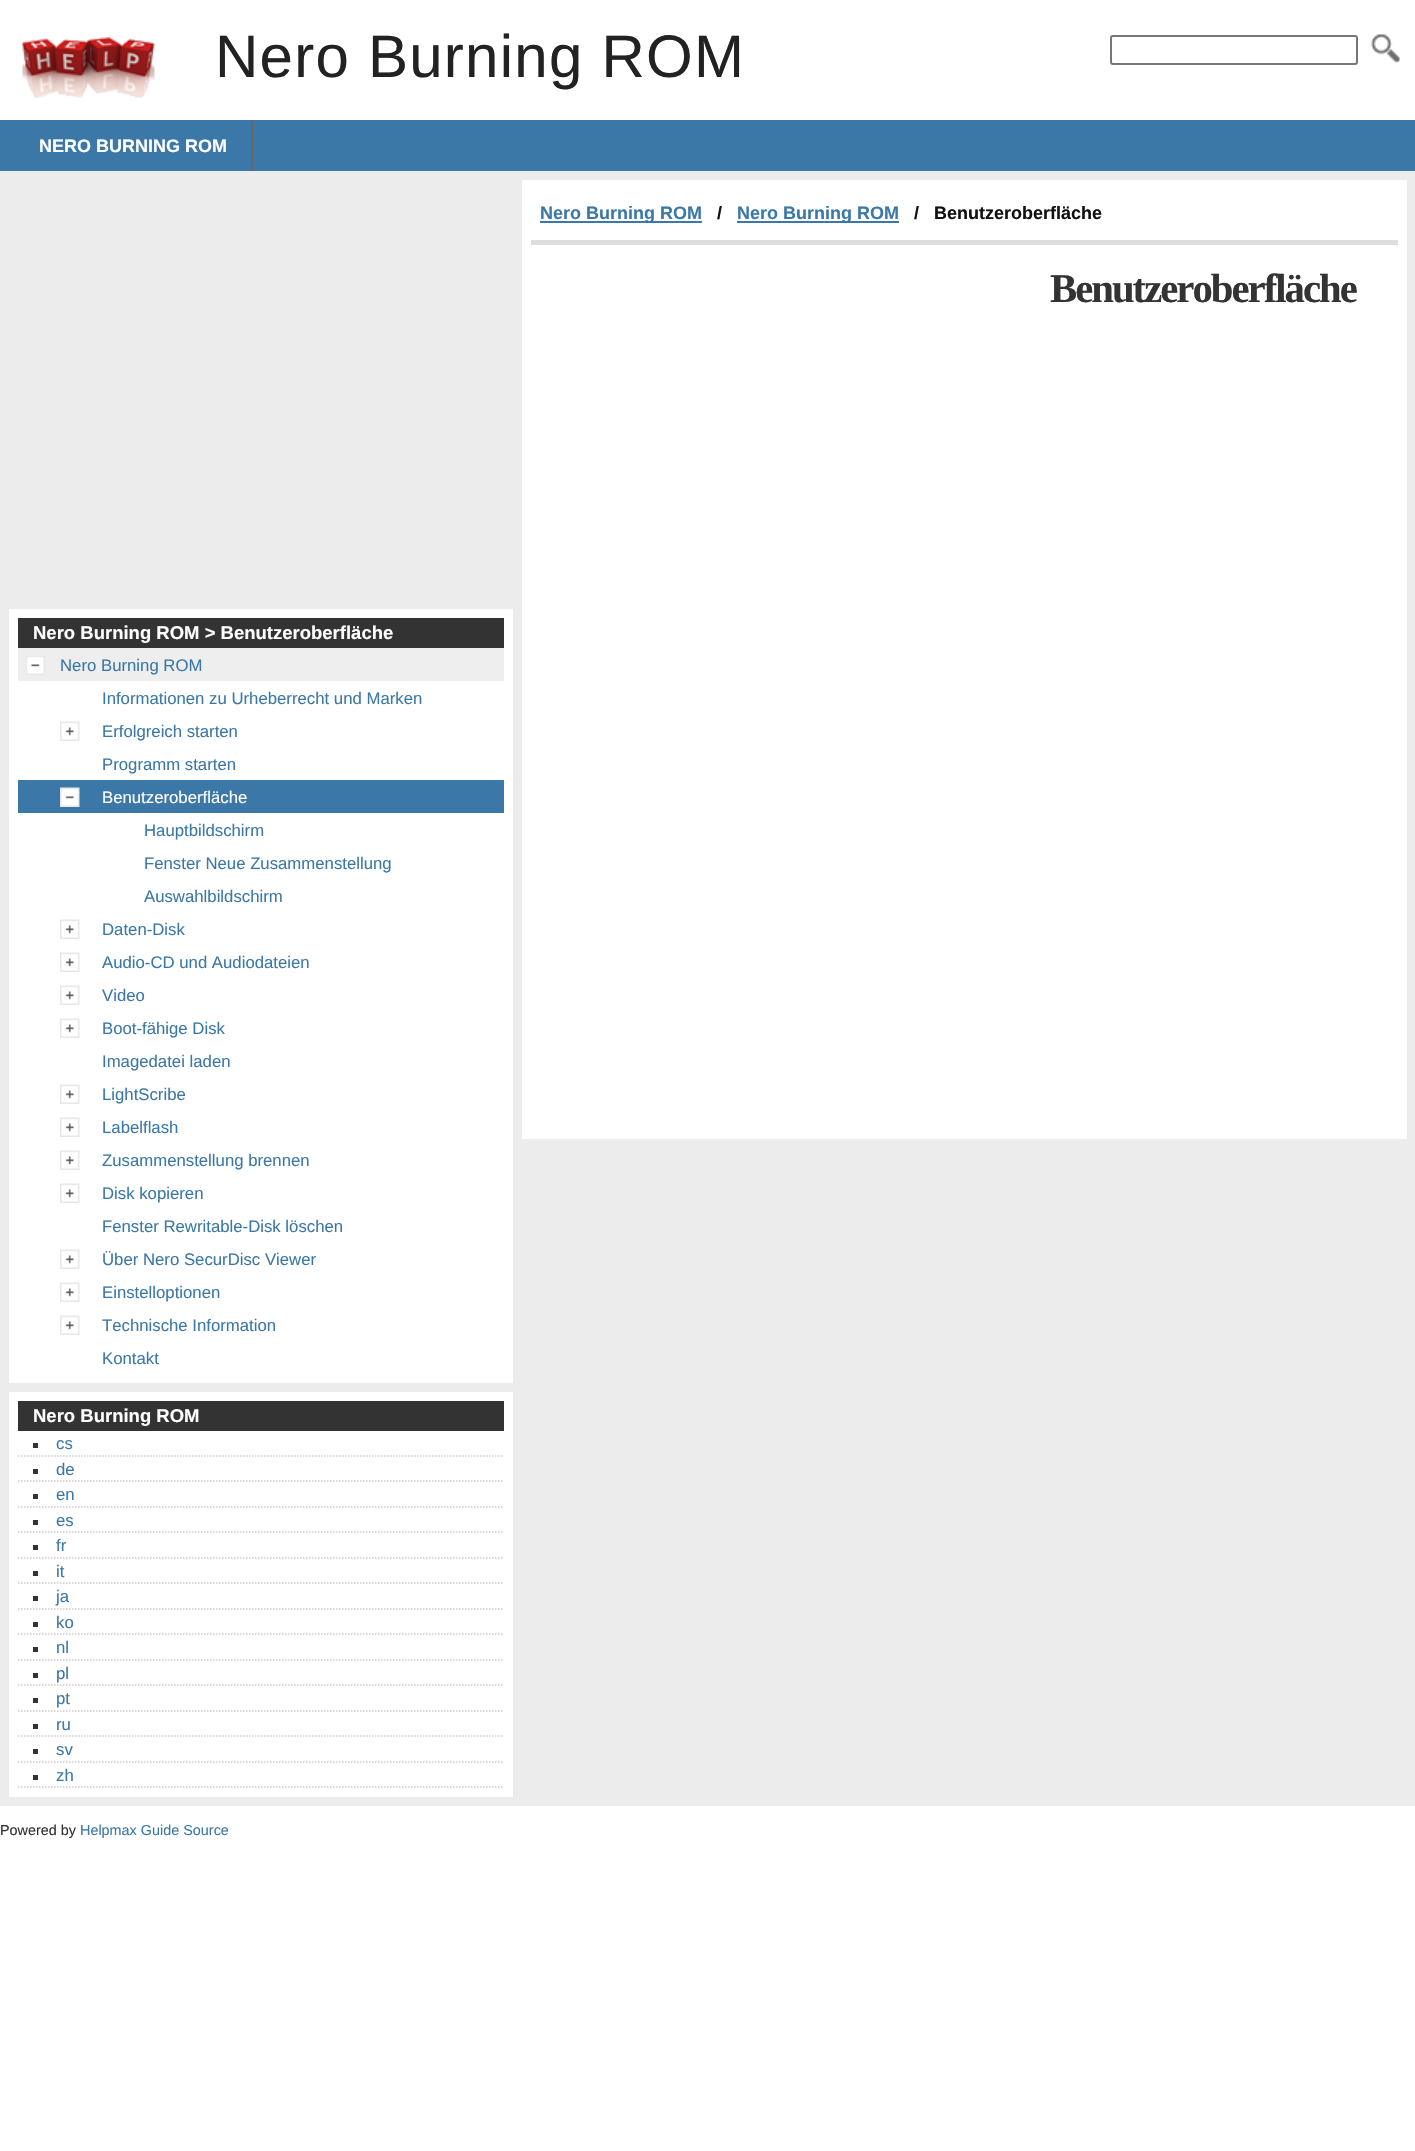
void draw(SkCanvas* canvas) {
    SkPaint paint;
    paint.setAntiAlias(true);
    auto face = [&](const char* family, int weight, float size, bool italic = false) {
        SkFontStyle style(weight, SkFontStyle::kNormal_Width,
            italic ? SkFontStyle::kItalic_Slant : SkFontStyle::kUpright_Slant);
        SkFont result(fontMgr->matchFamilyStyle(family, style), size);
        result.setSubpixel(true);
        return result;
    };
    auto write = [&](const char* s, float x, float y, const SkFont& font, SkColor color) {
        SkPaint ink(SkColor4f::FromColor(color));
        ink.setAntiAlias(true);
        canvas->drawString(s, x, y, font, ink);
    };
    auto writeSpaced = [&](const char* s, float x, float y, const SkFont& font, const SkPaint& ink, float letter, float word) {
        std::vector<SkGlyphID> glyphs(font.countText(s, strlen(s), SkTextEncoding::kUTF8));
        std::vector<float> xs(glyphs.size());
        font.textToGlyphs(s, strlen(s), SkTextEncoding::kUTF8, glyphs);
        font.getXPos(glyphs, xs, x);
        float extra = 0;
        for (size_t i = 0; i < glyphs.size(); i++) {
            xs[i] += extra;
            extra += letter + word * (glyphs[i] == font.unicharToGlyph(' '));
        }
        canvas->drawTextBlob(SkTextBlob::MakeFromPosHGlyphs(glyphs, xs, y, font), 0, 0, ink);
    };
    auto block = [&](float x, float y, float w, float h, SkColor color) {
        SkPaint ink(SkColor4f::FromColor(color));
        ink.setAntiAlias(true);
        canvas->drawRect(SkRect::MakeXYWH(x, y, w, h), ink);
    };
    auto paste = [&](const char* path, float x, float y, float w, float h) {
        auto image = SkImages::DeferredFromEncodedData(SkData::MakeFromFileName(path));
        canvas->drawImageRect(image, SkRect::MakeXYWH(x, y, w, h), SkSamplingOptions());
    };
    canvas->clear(SK_ColorWHITE);
    paste("pic1.png", 22, 37, 133, 61);
    auto kFont1 = face("Liberation Sans", 400, 60);
    paint.setColor(SkColorSetRGB(34, 34, 34));
    writeSpaced("Nero Burning ROM", 215, 77, kFont1, paint, 1.25f, 0);
    paint.setStyle(SkPaint::kStroke_Style);
    paint.setStrokeWidth(2);
    paint.setColor(SkColorSetRGB(118, 118, 118));
    canvas->drawRoundRect(SkRect::MakeXYWH(1111, 36, 246, 28), 2, 2, paint);
    paste("pic2.png", 1371, 34, 29, 30);
    block(0, 120, 1415, 51, SkColorSetRGB(60, 120, 167));
    block(251, 120, 2, 51, SkColorSetRGB(102, 102, 102));
    auto kFont2 = face("Liberation Sans", 700, 18);
    write("NERO BURNING ROM", 39, 152, kFont2, SK_ColorWHITE);
    block(0, 171, 1415, 1635, SkColorSetRGB(236, 236, 236));
    block(522, 180, 885, 959, SK_ColorWHITE);
    block(531, 240, 867, 5, SkColorSetRGB(221, 221, 221));
    block(540, 221, 162, 2, SkColorSetRGB(60, 120, 167));
    write("Nero Burning ROM", 540, 219, kFont2, SkColorSetRGB(60, 120, 167));
    write("/", 717, 219, kFont2, SkColorSetRGB(17, 17, 17));
    block(737, 221, 162, 2, SkColorSetRGB(60, 120, 167));
    write("Nero Burning ROM", 737, 219, kFont2, SkColorSetRGB(60, 120, 167));
    write("/", 914, 219, kFont2, SkColorSetRGB(17, 17, 17));
    write("Benutzeroberfläche", 934, 219, kFont2, SkColorSetRGB(17, 17, 17));
    auto kFont3 = face("Liberation Serif", 700, 40.75f);
    paint.setStyle(SkPaint::kFill_Style);
    paint.setColor(SkColorSetRGB(51, 51, 51));
    writeSpaced("Benutzeroberfläche", 1050, 302, kFont3, paint, -2, 0);
    block(9, 609, 504, 774, SK_ColorWHITE);
    block(18, 618, 486, 30, SkColorSetRGB(51, 51, 51));
    auto kFont4 = face("Liberation Sans", 700, 18.5f);
    write("Nero Burning ROM > Benutzeroberfläche", 33, 639, kFont4, SK_ColorWHITE);
    block(18, 648, 486, 33, SkColorSetRGB(238, 238, 238));
    paste("pic3.png", 26, 656, 19, 19);
    auto kFont5 = face("Liberation Sans", 400, 16.75f);
    write("Nero Burning ROM", 60, 671, kFont5, SkColorSetRGB(60, 120, 167));
    write("Informationen zu Urheberrecht und Marken", 102, 704, kFont5, SkColorSetRGB(60, 120, 167));
    paste("pic4.png", 60, 721, 20, 20);
    write("Erfolgreich starten", 102, 737, kFont5, SkColorSetRGB(60, 120, 167));
    write("Programm starten", 102, 770, kFont5, SkColorSetRGB(60, 120, 167));
    block(18, 780, 486, 33, SkColorSetRGB(60, 120, 167));
    paste("pic5.png", 60, 787, 20, 20);
    write("Benutzeroberfläche", 102, 803, kFont5, SK_ColorWHITE);
    write("Hauptbildschirm", 144, 836, kFont5, SkColorSetRGB(60, 120, 167));
    write("Fenster Neue Zusammenstellung", 144, 869, kFont5, SkColorSetRGB(60, 120, 167));
    write("Auswahlbildschirm", 144, 902, kFont5, SkColorSetRGB(60, 120, 167));
    paste("pic4.png", 60, 919, 20, 20);
    write("Daten-Disk", 102, 935, kFont5, SkColorSetRGB(60, 120, 167));
    paste("pic4.png", 60, 952, 20, 20);
    write("Audio-CD und Audiodateien", 102, 968, kFont5, SkColorSetRGB(60, 120, 167));
    paste("pic4.png", 60, 985, 20, 20);
    write("Video", 102, 1001, kFont5, SkColorSetRGB(60, 120, 167));
    paste("pic4.png", 60, 1018, 20, 20);
    write("Boot-fähige Disk", 102, 1034, kFont5, SkColorSetRGB(60, 120, 167));
    write("Imagedatei laden", 102, 1067, kFont5, SkColorSetRGB(60, 120, 167));
    paste("pic4.png", 60, 1084, 20, 20);
    write("LightScribe", 102, 1100, kFont5, SkColorSetRGB(60, 120, 167));
    paste("pic4.png", 60, 1117, 20, 20);
    write("Labelflash", 102, 1133, kFont5, SkColorSetRGB(60, 120, 167));
    paste("pic4.png", 60, 1150, 20, 20);
    write("Zusammenstellung brennen", 102, 1166, kFont5, SkColorSetRGB(60, 120, 167));
    paste("pic4.png", 60, 1183, 20, 20);
    write("Disk kopieren", 102, 1199, kFont5, SkColorSetRGB(60, 120, 167));
    write("Fenster Rewritable-Disk löschen", 102, 1232, kFont5, SkColorSetRGB(60, 120, 167));
    paste("pic4.png", 60, 1249, 20, 20);
    write("Über Nero SecurDisc Viewer", 102, 1265, kFont5, SkColorSetRGB(60, 120, 167));
    paste("pic4.png", 60, 1282, 20, 20);
    write("Einstelloptionen", 102, 1298, kFont5, SkColorSetRGB(60, 120, 167));
    paste("pic4.png", 60, 1315, 20, 20);
    write("Technische Information", 102, 1331, kFont5, SkColorSetRGB(60, 120, 167));
    write("Kontakt", 102, 1364, kFont5, SkColorSetRGB(60, 120, 167));
    block(9, 1392, 504, 405, SK_ColorWHITE);
    block(18, 1401, 486, 30, SkColorSetRGB(51, 51, 51));
    write("Nero Burning ROM", 33, 1422, kFont4, SK_ColorWHITE);
    paint.setStyle(SkPaint::kStroke_Style);
    paint.setStrokeWidth(1.5f);
    paint.setColor(SkColorSetRGB(204, 204, 204));
    paint.setPathEffect(SkDashPathEffect::Make({{1.5f, 1.5f}}, 0));
    canvas->drawPath(SkPathBuilder().moveTo(18, 1456).lineTo(504, 1456).detach(), paint);
    paint.setPathEffect(nullptr);
    block(33, 1443, 5, 5, SkColorSetRGB(51, 51, 51));
    write("cs", 56, 1449, kFont5, SkColorSetRGB(60, 120, 167));
    paint.setPathEffect(SkDashPathEffect::Make({{1.5f, 1.5f}}, 0));
    canvas->drawPath(SkPathBuilder().moveTo(18, 1481).lineTo(504, 1481).detach(), paint);
    paint.setPathEffect(nullptr);
    block(33, 1469, 5, 5, SkColorSetRGB(51, 51, 51));
    write("de", 56, 1475, kFont5, SkColorSetRGB(60, 120, 167));
    paint.setPathEffect(SkDashPathEffect::Make({{1.5f, 1.5f}}, 0));
    canvas->drawPath(SkPathBuilder().moveTo(18, 1507).lineTo(504, 1507).detach(), paint);
    paint.setPathEffect(nullptr);
    block(33, 1494, 5, 5, SkColorSetRGB(51, 51, 51));
    write("en", 56, 1500, kFont5, SkColorSetRGB(60, 120, 167));
    paint.setPathEffect(SkDashPathEffect::Make({{1.5f, 1.5f}}, 0));
    canvas->drawPath(SkPathBuilder().moveTo(18, 1532).lineTo(504, 1532).detach(), paint);
    paint.setPathEffect(nullptr);
    block(33, 1520, 5, 5, SkColorSetRGB(51, 51, 51));
    write("es", 56, 1526, kFont5, SkColorSetRGB(60, 120, 167));
    paint.setPathEffect(SkDashPathEffect::Make({{1.5f, 1.5f}}, 0));
    canvas->drawPath(SkPathBuilder().moveTo(18, 1558).lineTo(504, 1558).detach(), paint);
    paint.setPathEffect(nullptr);
    block(33, 1545, 5, 5, SkColorSetRGB(51, 51, 51));
    write("fr", 56, 1551, kFont5, SkColorSetRGB(60, 120, 167));
    paint.setPathEffect(SkDashPathEffect::Make({{1.5f, 1.5f}}, 0));
    canvas->drawPath(SkPathBuilder().moveTo(18, 1583).lineTo(504, 1583).detach(), paint);
    paint.setPathEffect(nullptr);
    block(33, 1571, 5, 5, SkColorSetRGB(51, 51, 51));
    write("it", 56, 1577, kFont5, SkColorSetRGB(60, 120, 167));
    paint.setPathEffect(SkDashPathEffect::Make({{1.5f, 1.5f}}, 0));
    canvas->drawPath(SkPathBuilder().moveTo(18, 1609).lineTo(504, 1609).detach(), paint);
    paint.setPathEffect(nullptr);
    block(33, 1596, 5, 5, SkColorSetRGB(51, 51, 51));
    write("ja", 56, 1602, kFont5, SkColorSetRGB(60, 120, 167));
    paint.setPathEffect(SkDashPathEffect::Make({{1.5f, 1.5f}}, 0));
    canvas->drawPath(SkPathBuilder().moveTo(18, 1634).lineTo(504, 1634).detach(), paint);
    paint.setPathEffect(nullptr);
    block(33, 1622, 5, 5, SkColorSetRGB(51, 51, 51));
    write("ko", 56, 1628, kFont5, SkColorSetRGB(60, 120, 167));
    paint.setPathEffect(SkDashPathEffect::Make({{1.5f, 1.5f}}, 0));
    canvas->drawPath(SkPathBuilder().moveTo(18, 1660).lineTo(504, 1660).detach(), paint);
    paint.setPathEffect(nullptr);
    block(33, 1647, 5, 5, SkColorSetRGB(51, 51, 51));
    write("nl", 56, 1653, kFont5, SkColorSetRGB(60, 120, 167));
    paint.setPathEffect(SkDashPathEffect::Make({{1.5f, 1.5f}}, 0));
    canvas->drawPath(SkPathBuilder().moveTo(18, 1685).lineTo(504, 1685).detach(), paint);
    paint.setPathEffect(nullptr);
    block(33, 1673, 5, 5, SkColorSetRGB(51, 51, 51));
    write("pl", 56, 1679, kFont5, SkColorSetRGB(60, 120, 167));
    paint.setPathEffect(SkDashPathEffect::Make({{1.5f, 1.5f}}, 0));
    canvas->drawPath(SkPathBuilder().moveTo(18, 1711).lineTo(504, 1711).detach(), paint);
    paint.setPathEffect(nullptr);
    block(33, 1698, 5, 5, SkColorSetRGB(51, 51, 51));
    write("pt", 56, 1704, kFont5, SkColorSetRGB(60, 120, 167));
    paint.setPathEffect(SkDashPathEffect::Make({{1.5f, 1.5f}}, 0));
    canvas->drawPath(SkPathBuilder().moveTo(18, 1736).lineTo(504, 1736).detach(), paint);
    paint.setPathEffect(nullptr);
    block(33, 1724, 5, 5, SkColorSetRGB(51, 51, 51));
    write("ru", 56, 1730, kFont5, SkColorSetRGB(60, 120, 167));
    paint.setPathEffect(SkDashPathEffect::Make({{1.5f, 1.5f}}, 0));
    canvas->drawPath(SkPathBuilder().moveTo(18, 1762).lineTo(504, 1762).detach(), paint);
    paint.setPathEffect(nullptr);
    block(33, 1749, 5, 5, SkColorSetRGB(51, 51, 51));
    write("sv", 56, 1755, kFont5, SkColorSetRGB(60, 120, 167));
    paint.setPathEffect(SkDashPathEffect::Make({{1.5f, 1.5f}}, 0));
    canvas->drawPath(SkPathBuilder().moveTo(18, 1787).lineTo(504, 1787).detach(), paint);
    paint.setPathEffect(nullptr);
    block(33, 1775, 5, 5, SkColorSetRGB(51, 51, 51));
    write("zh", 56, 1781, kFont5, SkColorSetRGB(60, 120, 167));
    auto kFont6 = face("Liberation Sans", 400, 14.4f);
    write("Powered by", 0, 1835, kFont6, SkColorSetRGB(51, 51, 51));
    write("Helpmax Guide Source", 80, 1835, kFont6, SkColorSetRGB(60, 120, 167));
}
